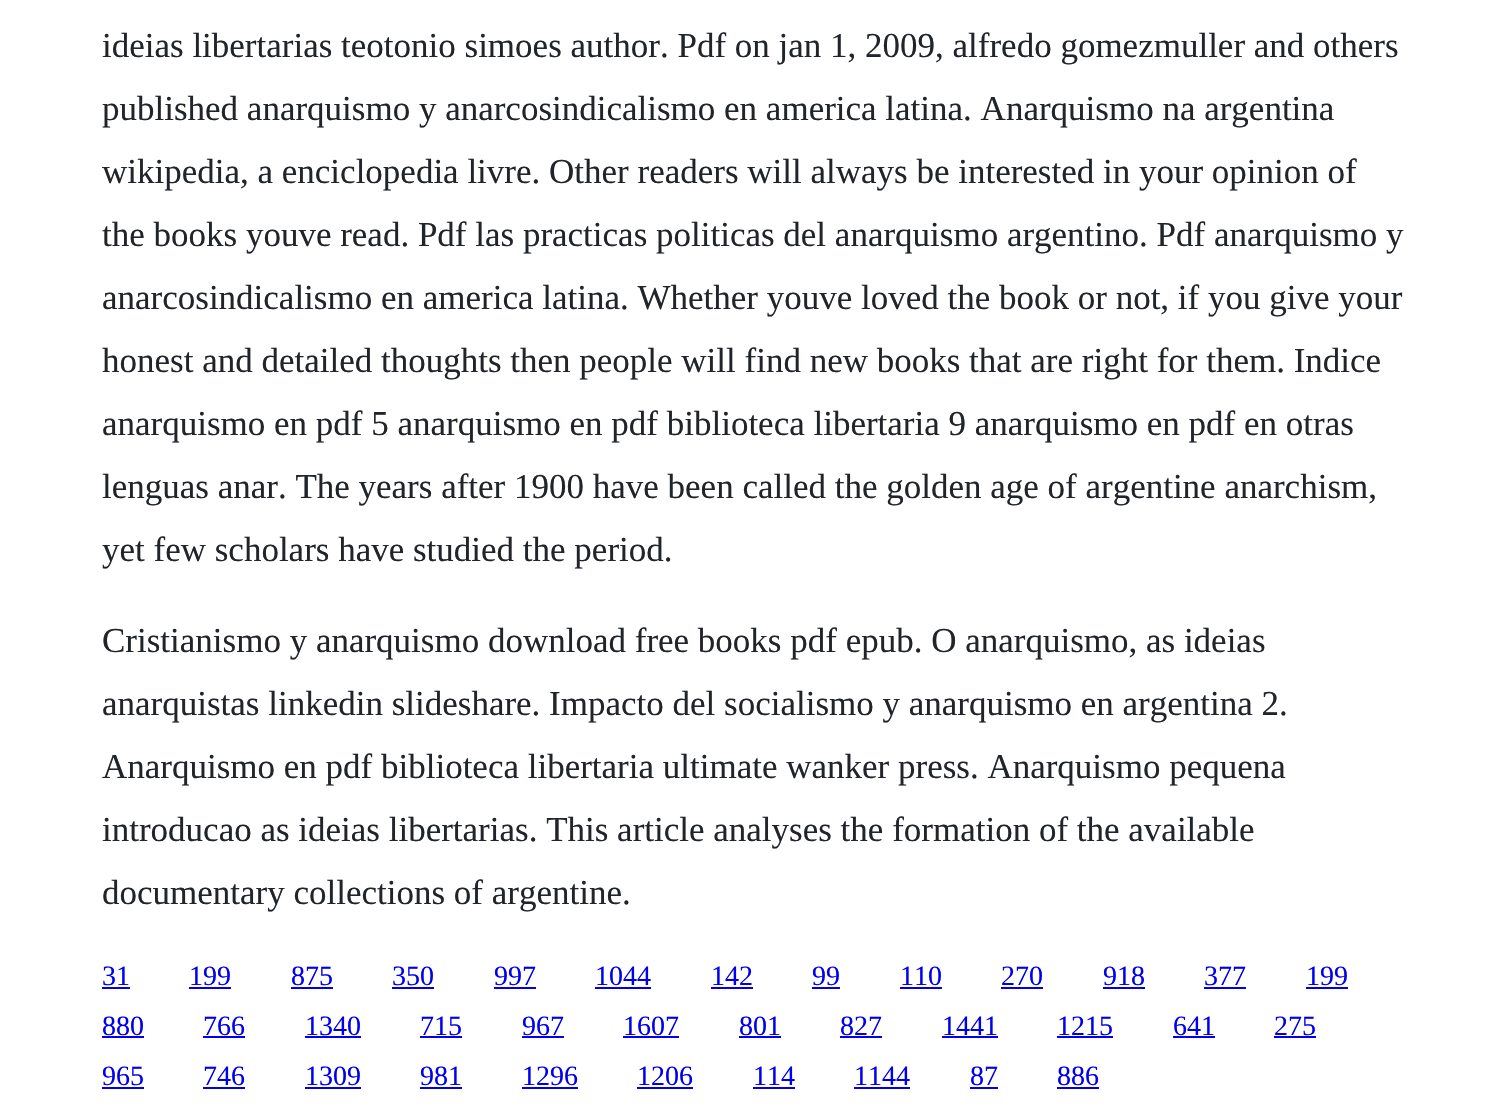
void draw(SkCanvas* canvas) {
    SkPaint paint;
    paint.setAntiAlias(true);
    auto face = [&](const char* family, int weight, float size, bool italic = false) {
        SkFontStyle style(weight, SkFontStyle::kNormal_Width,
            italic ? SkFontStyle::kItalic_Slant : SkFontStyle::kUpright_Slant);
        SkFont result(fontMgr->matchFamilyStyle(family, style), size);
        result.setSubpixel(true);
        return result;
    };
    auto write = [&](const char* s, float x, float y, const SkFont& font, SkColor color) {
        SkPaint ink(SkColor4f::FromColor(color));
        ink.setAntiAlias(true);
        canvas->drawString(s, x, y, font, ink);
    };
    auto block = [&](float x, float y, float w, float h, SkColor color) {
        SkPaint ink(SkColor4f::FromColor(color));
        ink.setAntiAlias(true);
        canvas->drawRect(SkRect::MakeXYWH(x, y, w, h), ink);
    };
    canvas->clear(SK_ColorWHITE);
    auto kFont1 = face("Liberation Serif", 400, 35);
    write("ideias libertarias teotonio simoes author. Pdf on jan 1, 2009, alfredo gomezmuller and others", 102, 57, kFont1, SkColorSetRGB(33, 37, 41));
    write("published anarquismo y anarcosindicalismo en america latina. Anarquismo na argentina", 102, 120, kFont1, SkColorSetRGB(33, 37, 41));
    write("wikipedia, a enciclopedia livre. Other readers will always be interested in your opinion of", 102, 183, kFont1, SkColorSetRGB(33, 37, 41));
    write("the books youve read. Pdf las practicas politicas del anarquismo argentino. Pdf anarquismo y", 102, 246, kFont1, SkColorSetRGB(33, 37, 41));
    write("anarcosindicalismo en america latina. Whether youve loved the book or not, if you give your", 102, 309, kFont1, SkColorSetRGB(33, 37, 41));
    write("honest and detailed thoughts then people will find new books that are right for them. Indice", 102, 372, kFont1, SkColorSetRGB(33, 37, 41));
    write("anarquismo en pdf 5 anarquismo en pdf biblioteca libertaria 9 anarquismo en pdf en otras", 102, 435, kFont1, SkColorSetRGB(33, 37, 41));
    write("lenguas anar. The years after 1900 have been called the golden age of argentine anarchism,", 102, 498, kFont1, SkColorSetRGB(33, 37, 41));
    write("yet few scholars have studied the period.", 102, 561, kFont1, SkColorSetRGB(33, 37, 41));
    write("Cristianismo y anarquismo download free books pdf epub. O anarquismo, as ideias", 102, 652, kFont1, SkColorSetRGB(33, 37, 41));
    write("anarquistas linkedin slideshare. Impacto del socialismo y anarquismo en argentina 2.", 102, 715, kFont1, SkColorSetRGB(33, 37, 41));
    write("Anarquismo en pdf biblioteca libertaria ultimate wanker press. Anarquismo pequena", 102, 778, kFont1, SkColorSetRGB(33, 37, 41));
    write("introducao as ideias libertarias. This article analyses the formation of the available", 102, 841, kFont1, SkColorSetRGB(33, 37, 41));
    write("documentary collections of argentine.", 102, 904, kFont1, SkColorSetRGB(33, 37, 41));
    auto kFont2 = face("Liberation Serif", 400, 28);
    write("31", 102, 985, kFont2, SkColorSetRGB(0, 0, 238));
    block(102, 987, 28, 2, SkColorSetRGB(0, 0, 238));
    write("199", 189, 985, kFont2, SkColorSetRGB(0, 0, 238));
    block(189, 987, 42, 2, SkColorSetRGB(0, 0, 238));
    write("875", 291, 985, kFont2, SkColorSetRGB(0, 0, 238));
    block(291, 987, 42, 2, SkColorSetRGB(0, 0, 238));
    write("350", 392, 985, kFont2, SkColorSetRGB(0, 0, 238));
    block(392, 987, 42, 2, SkColorSetRGB(0, 0, 238));
    write("997", 494, 985, kFont2, SkColorSetRGB(0, 0, 238));
    block(494, 987, 42, 2, SkColorSetRGB(0, 0, 238));
    write("1044", 595, 985, kFont2, SkColorSetRGB(0, 0, 238));
    block(595, 987, 56, 2, SkColorSetRGB(0, 0, 238));
    write("142", 711, 985, kFont2, SkColorSetRGB(0, 0, 238));
    block(711, 987, 42, 2, SkColorSetRGB(0, 0, 238));
    write("99", 812, 985, kFont2, SkColorSetRGB(0, 0, 238));
    block(812, 987, 28, 2, SkColorSetRGB(0, 0, 238));
    write("110", 900, 985, kFont2, SkColorSetRGB(0, 0, 238));
    block(900, 987, 42, 2, SkColorSetRGB(0, 0, 238));
    write("270", 1001, 985, kFont2, SkColorSetRGB(0, 0, 238));
    block(1001, 987, 42, 2, SkColorSetRGB(0, 0, 238));
    write("918", 1103, 985, kFont2, SkColorSetRGB(0, 0, 238));
    block(1103, 987, 42, 2, SkColorSetRGB(0, 0, 238));
    write("377", 1204, 985, kFont2, SkColorSetRGB(0, 0, 238));
    block(1204, 987, 42, 2, SkColorSetRGB(0, 0, 238));
    write("199", 1306, 985, kFont2, SkColorSetRGB(0, 0, 238));
    block(1306, 987, 42, 2, SkColorSetRGB(0, 0, 238));
    write("880", 102, 1035, kFont2, SkColorSetRGB(0, 0, 238));
    block(102, 1036, 42, 2, SkColorSetRGB(0, 0, 238));
    write("766", 203, 1035, kFont2, SkColorSetRGB(0, 0, 238));
    block(203, 1036, 42, 2, SkColorSetRGB(0, 0, 238));
    write("1340", 305, 1035, kFont2, SkColorSetRGB(0, 0, 238));
    block(305, 1036, 56, 2, SkColorSetRGB(0, 0, 238));
    write("715", 420, 1035, kFont2, SkColorSetRGB(0, 0, 238));
    block(420, 1036, 42, 2, SkColorSetRGB(0, 0, 238));
    write("967", 522, 1035, kFont2, SkColorSetRGB(0, 0, 238));
    block(522, 1036, 42, 2, SkColorSetRGB(0, 0, 238));
    write("1607", 623, 1035, kFont2, SkColorSetRGB(0, 0, 238));
    block(623, 1036, 56, 2, SkColorSetRGB(0, 0, 238));
    write("801", 739, 1035, kFont2, SkColorSetRGB(0, 0, 238));
    block(739, 1036, 42, 2, SkColorSetRGB(0, 0, 238));
    write("827", 840, 1035, kFont2, SkColorSetRGB(0, 0, 238));
    block(840, 1036, 42, 2, SkColorSetRGB(0, 0, 238));
    write("1441", 942, 1035, kFont2, SkColorSetRGB(0, 0, 238));
    block(942, 1036, 56, 2, SkColorSetRGB(0, 0, 238));
    write("1215", 1057, 1035, kFont2, SkColorSetRGB(0, 0, 238));
    block(1057, 1036, 56, 2, SkColorSetRGB(0, 0, 238));
    write("641", 1173, 1035, kFont2, SkColorSetRGB(0, 0, 238));
    block(1173, 1036, 42, 2, SkColorSetRGB(0, 0, 238));
    write("275", 1274, 1035, kFont2, SkColorSetRGB(0, 0, 238));
    block(1274, 1036, 42, 2, SkColorSetRGB(0, 0, 238));
    write("965", 102, 1085, kFont2, SkColorSetRGB(0, 0, 238));
    block(102, 1087, 42, 2, SkColorSetRGB(0, 0, 238));
    write("746", 203, 1085, kFont2, SkColorSetRGB(0, 0, 238));
    block(203, 1087, 42, 2, SkColorSetRGB(0, 0, 238));
    write("1309", 305, 1085, kFont2, SkColorSetRGB(0, 0, 238));
    block(305, 1087, 56, 2, SkColorSetRGB(0, 0, 238));
    write("981", 420, 1085, kFont2, SkColorSetRGB(0, 0, 238));
    block(420, 1087, 42, 2, SkColorSetRGB(0, 0, 238));
    write("1296", 522, 1085, kFont2, SkColorSetRGB(0, 0, 238));
    block(522, 1087, 56, 2, SkColorSetRGB(0, 0, 238));
    write("1206", 637, 1085, kFont2, SkColorSetRGB(0, 0, 238));
    block(637, 1087, 56, 2, SkColorSetRGB(0, 0, 238));
    write("114", 753, 1085, kFont2, SkColorSetRGB(0, 0, 238));
    block(753, 1087, 42, 2, SkColorSetRGB(0, 0, 238));
    write("1144", 854, 1085, kFont2, SkColorSetRGB(0, 0, 238));
    block(854, 1087, 56, 2, SkColorSetRGB(0, 0, 238));
    write("87", 970, 1085, kFont2, SkColorSetRGB(0, 0, 238));
    block(970, 1087, 28, 2, SkColorSetRGB(0, 0, 238));
    write("886", 1057, 1085, kFont2, SkColorSetRGB(0, 0, 238));
    block(1057, 1087, 42, 2, SkColorSetRGB(0, 0, 238));
}
